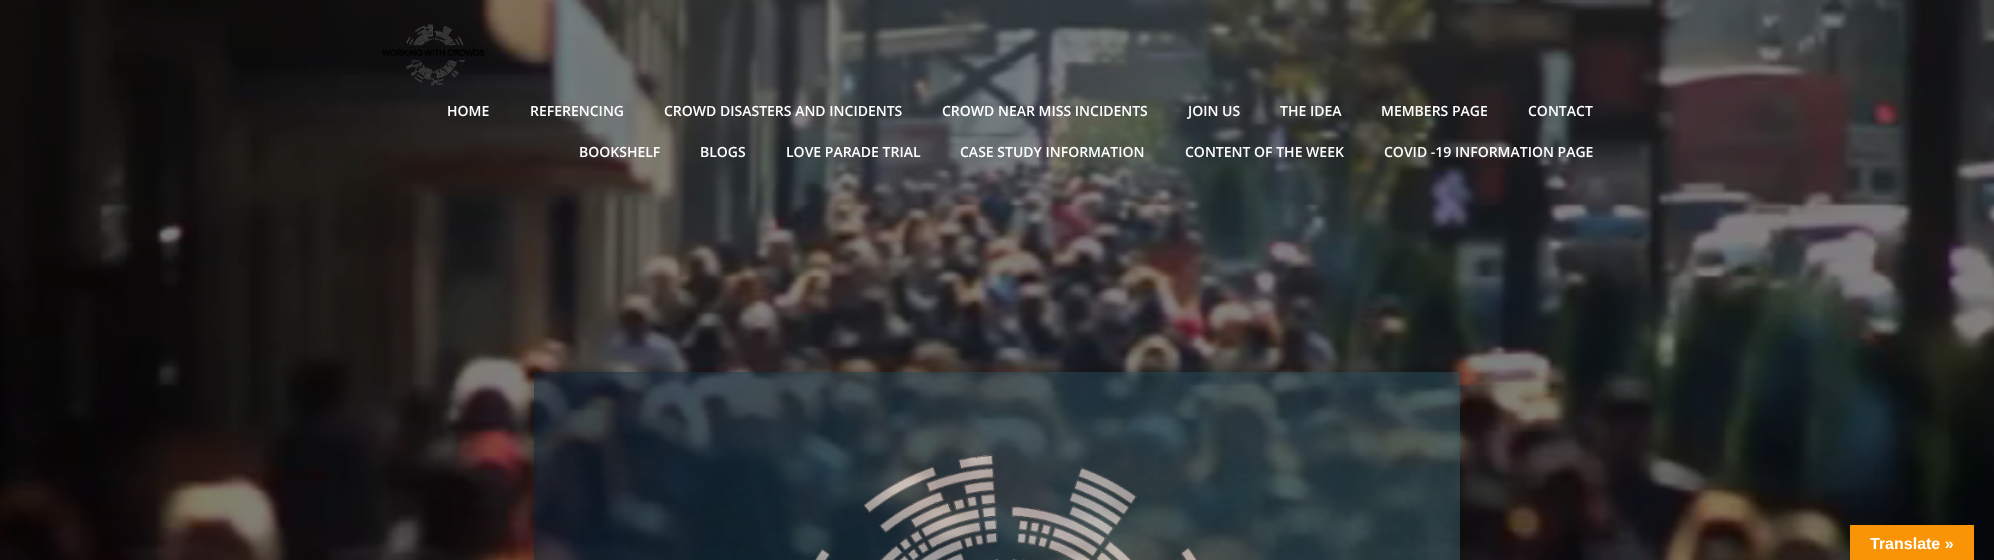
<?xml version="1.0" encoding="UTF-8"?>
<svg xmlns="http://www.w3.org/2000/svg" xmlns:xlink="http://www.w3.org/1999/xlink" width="1994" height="560">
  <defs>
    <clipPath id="clip1"><path d="M 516 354 h 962 v 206 h -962 z m 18 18 h 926 v 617 h -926 z" clip-rule="evenodd" /></clipPath>
  </defs>
  <rect width="100%" height="100%" fill="#ffffff" />
  <image x="0" y="0" width="1994" height="560" xlink:href="image1.png" />
  <g clip-path="url(#clip1)">
    <rect x="532" y="370" width="930" height="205" fill="#000000" fill-opacity="0.29" filter="blur(5px)" />
  </g>
  <image x="534" y="372" width="926" height="188" xlink:href="image2.png" />
  <image x="382" y="24" width="103" height="62" xlink:href="image3.png" />
  <rect x="1850" y="525" width="124" height="35" fill="#f89406" />
  <text x="447" y="116" style="font-family: Open Sans; font-size: 14px; font-weight: 600; fill: #ffffff">HOME</text>
  <text x="530" y="116" style="font-family: Open Sans; font-size: 14px; font-weight: 600; fill: #ffffff">REFERENCING</text>
  <text x="664" y="116" style="font-family: Open Sans; font-size: 14px; font-weight: 600; fill: #ffffff">CROWD DISASTERS AND INCIDENTS</text>
  <text x="942" y="116" style="font-family: Open Sans; font-size: 14px; font-weight: 600; fill: #ffffff">CROWD NEAR MISS INCIDENTS</text>
  <text x="1188" y="116" style="font-family: Open Sans; font-size: 14px; font-weight: 600; fill: #ffffff">JOIN US</text>
  <text x="1280" y="116" style="font-family: Open Sans; font-size: 14px; font-weight: 600; fill: #ffffff">THE IDEA</text>
  <text x="1381" y="116" style="font-family: Open Sans; font-size: 14px; font-weight: 600; fill: #ffffff">MEMBERS PAGE</text>
  <text x="1528" y="116" style="font-family: Open Sans; font-size: 14px; font-weight: 600; fill: #ffffff">CONTACT</text>
  <text x="579" y="157" style="font-family: Open Sans; font-size: 14px; font-weight: 600; fill: #ffffff">BOOKSHELF</text>
  <text x="700" y="157" style="font-family: Open Sans; font-size: 14px; font-weight: 600; fill: #ffffff">BLOGS</text>
  <text x="786" y="157" style="font-family: Open Sans; font-size: 14px; font-weight: 600; fill: #ffffff">LOVE PARADE TRIAL</text>
  <text x="960" y="157" style="font-family: Open Sans; font-size: 14px; font-weight: 600; fill: #ffffff">CASE STUDY INFORMATION</text>
  <text x="1185" y="157" style="font-family: Open Sans; font-size: 14px; font-weight: 600; fill: #ffffff">CONTENT OF THE WEEK</text>
  <text x="1384" y="157" style="font-family: Open Sans; font-size: 14px; font-weight: 600; fill: #ffffff">COVID -19 INFORMATION PAGE</text>
  <text x="1870" y="549" style="font-family: Liberation Sans; font-size: 16px; font-weight: bold; fill: #ffffff">Translate »</text>
</svg>
